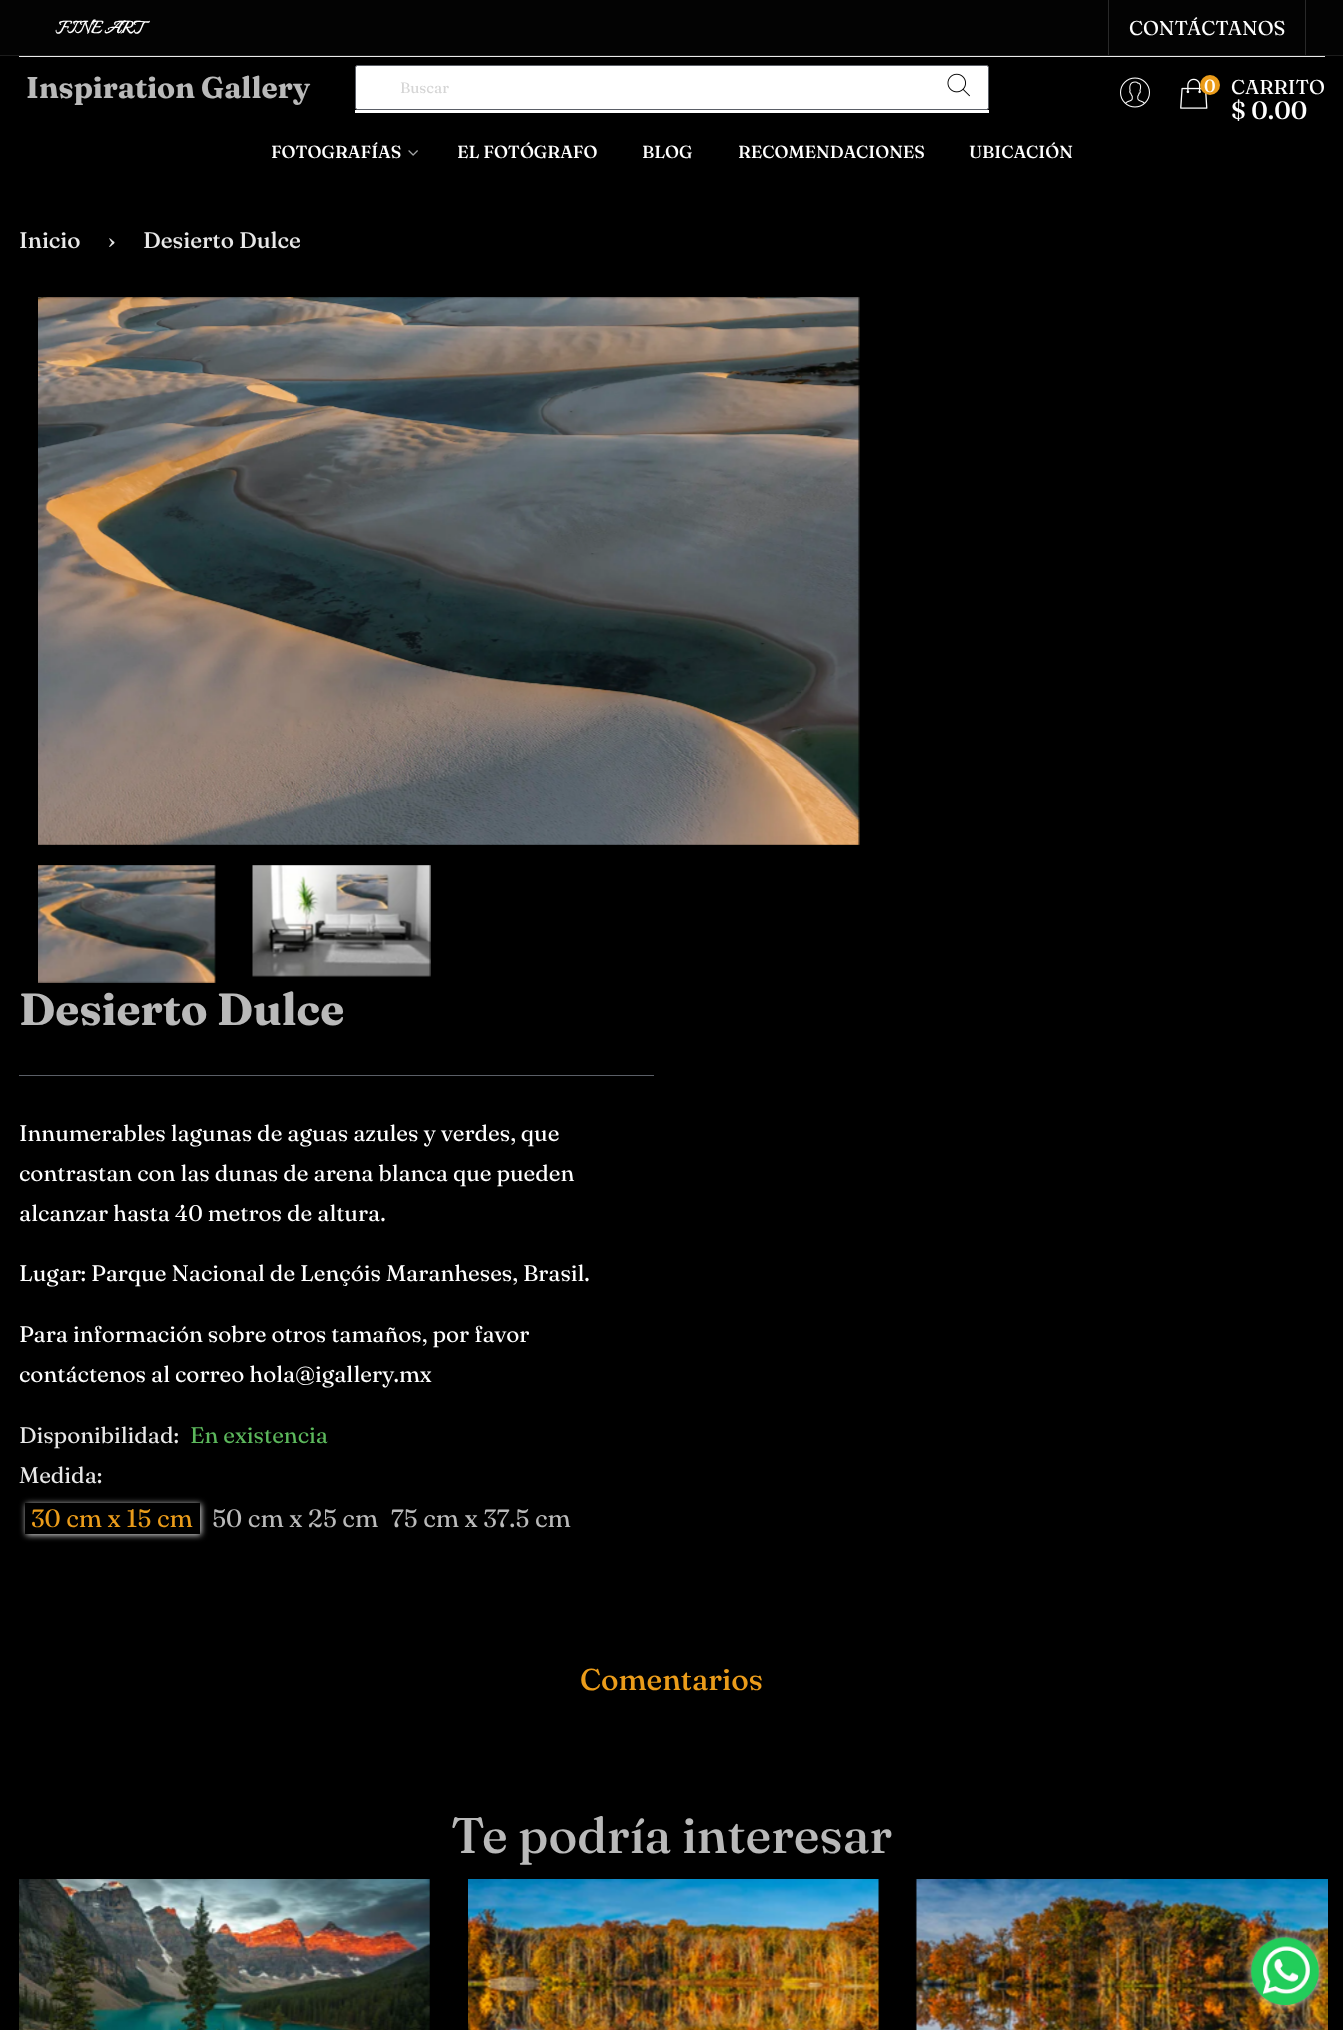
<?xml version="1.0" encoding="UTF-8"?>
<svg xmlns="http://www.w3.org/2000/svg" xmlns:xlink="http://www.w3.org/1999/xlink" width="1343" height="2030">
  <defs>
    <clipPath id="clip1"><path d="M 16 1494 h 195 v 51 h -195 z m 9 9 h 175 v 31 h -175 z" clip-rule="evenodd" /></clipPath>
  </defs>
  <rect width="100%" height="100%" fill="#000000" />
  <rect width="1343" height="55" fill="#030303" />
  <rect y="55" width="1343" height="1" fill="#1c1c1c" />
  <rect x="1305" width="1" height="55" fill="#292929" />
  <rect x="1108" width="1" height="55" fill="#292929" />
  <rect x="19" y="56" width="1306" height="1" fill="#ebebeb" />
  <rect x="355.5" y="65.5" width="633" height="44" rx="2" fill="#ffffff" stroke="#5b5f67" />
  <image x="947" y="73" width="23" height="24" xlink:href="image1.png" />
  <rect x="355" y="110" width="634" height="3" fill="#ffffff" />
  <image x="1120" y="77" width="30" height="31" xlink:href="image2.png" />
  <image x="1180" y="78" width="28" height="31" xlink:href="image3.png" />
  <circle cx="1210" cy="85" r="10" fill="#eb9c1a" />
  <image x="408" y="150" width="10" height="6" xlink:href="image4.png" />
  <image x="38" y="297" width="822" height="548" xlink:href="image5.png" />
  <image x="38" y="865" width="178" height="118" xlink:href="image6.png" />
  <image x="252" y="865" width="179" height="112" xlink:href="image7.png" />
  <rect x="19" y="1075" width="635" height="1" fill="#5b5f67" />
  <g clip-path="url(#clip1)">
    <rect x="26" y="1504" width="175" height="31" fill="#e4e4e4" filter="blur(3px)" />
  </g>
  <image x="19" y="1879" width="411" height="151" xlink:href="image8.png" />
  <image x="468" y="1879" width="412" height="151" xlink:href="image9.png" />
  <image x="915" y="1879" width="413" height="151" xlink:href="image10.png" />
  <rect x="1251" y="1938" width="68" height="67" rx="33.5" fill="#c2c2c2" filter="blur(5px)" />
  <image x="1251" y="1937" width="68" height="68" xlink:href="image11.png" />
  <text x="55" y="33" style="font-family: Italianno; font-size: 21.25px; font-weight: bold; fill: #ffffff">FINE ART</text>
  <text x="1129" y="35" style="font-family: Fraunces; font-size: 20px; fill: #ffffff">CONTÁCTANOS</text>
  <text x="26" y="98" style="font-family: Fraunces; font-size: 30px; font-weight: bold; fill: #b9b9b9">Inspiration Gallery</text>
  <text x="400" y="93" style="font-family: Fraunces; font-size: 15px; fill: #d5d5d5">Buscar</text>
  <text x="1204" y="92" style="font-family: 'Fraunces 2'; font-size: 17.5px; font-weight: 500; fill: #ffffff">0</text>
  <text x="1231" y="94" style="font-family: Fraunces; font-size: 20px; fill: #ffffff">CARRITO</text>
  <text x="1231" y="119" style="font-family: Fraunces; font-size: 25px; font-weight: 500; fill: #ffffff">$ 0.00</text>
  <text x="271" y="158" style="font-family: 'Fraunces 2'; font-size: 17.5px; font-weight: 500; fill: #ffffff">FOTOGRAFÍAS</text>
  <text x="457" y="158" style="font-family: 'Fraunces 2'; font-size: 17.5px; font-weight: 500; fill: #ffffff">EL FOTÓGRAFO</text>
  <text x="642" y="158" style="font-family: 'Fraunces 2'; font-size: 17.5px; font-weight: 500; fill: #ffffff">BLOG</text>
  <text x="738" y="158" style="font-family: 'Fraunces 2'; font-size: 17.5px; font-weight: 500; fill: #ffffff">RECOMENDACIONES</text>
  <text x="969" y="158" style="font-family: 'Fraunces 2'; font-size: 17.5px; font-weight: 500; fill: #ffffff">UBICACIÓN</text>
  <text x="19" y="248" style="font-family: 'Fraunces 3'; font-size: 22.5px; font-weight: 500; fill: #e8e8e8">Inicio</text>
  <text x="108" y="248" style="font-family: 'Fraunces 3'; font-size: 22.5px; font-weight: 500; fill: #e8e8e8">›</text>
  <text x="143" y="248" style="font-family: 'Fraunces 3'; font-size: 22.5px; font-weight: 500; fill: #e8e8e8">Desierto Dulce</text>
  <text x="19" y="1025" style="font-family: 'Fraunces 2'; font-size: 45px; font-weight: bold; fill: #b9b9b9">Desierto Dulce</text>
  <text x="19" y="1141" style="font-family: 'Fraunces 2'; font-size: 22.5px; fill: #ffffff">Innumerables lagunas de aguas azules y verdes, que</text>
  <text x="19" y="1181" style="font-family: 'Fraunces 2'; font-size: 22.5px; fill: #ffffff">contrastan con las dunas de arena blanca que pueden</text>
  <text x="19" y="1221" style="font-family: 'Fraunces 2'; font-size: 22.5px; fill: #ffffff">alcanzar hasta 40 metros de altura.</text>
  <text x="19" y="1281" style="font-family: 'Fraunces 2'; font-size: 22.5px; fill: #ffffff">Lugar: Parque Nacional de Lençóis Maranheses, Brasil.</text>
  <text x="19" y="1342" style="font-family: 'Fraunces 2'; font-size: 22.5px; fill: #ffffff">Para información sobre otros tamaños, por favor</text>
  <text x="19" y="1382" style="font-family: 'Fraunces 2'; font-size: 22.5px; fill: #ffffff">contáctenos al correo hola@igallery.mx</text>
  <text x="19" y="1443" style="font-family: 'Fraunces 2'; font-size: 22.5px; fill: #e8e8e8">Disponibilidad:</text>
  <text x="190" y="1443" style="font-family: 'Fraunces 2'; font-size: 22.5px; fill: #5cb85c">En existencia</text>
  <text x="19" y="1483" style="font-family: 'Fraunces 2'; font-size: 22.5px; fill: #e8e8e8">Medida:</text>
  <text x="31" y="1527" style="font-family: 'Fraunces 3'; font-size: 25px; fill: #eb9c1a">30 cm x 15 cm</text>
  <text x="212" y="1527" style="font-family: 'Fraunces 3'; font-size: 25px; fill: #b9b9b9">50 cm x 25 cm</text>
  <text x="391" y="1527" style="font-family: 'Fraunces 3'; font-size: 25px; fill: #b9b9b9">75 cm x 37.5 cm</text>
  <text x="580" y="1690" style="font-family: 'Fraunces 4'; font-size: 30px; font-weight: 500; fill: #eb9c1a">Comentarios</text>
  <text x="451" y="1853" style="font-family: 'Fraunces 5'; font-size: 50px; font-weight: 500; fill: #b9b9b9">Te podría interesar</text>
</svg>
